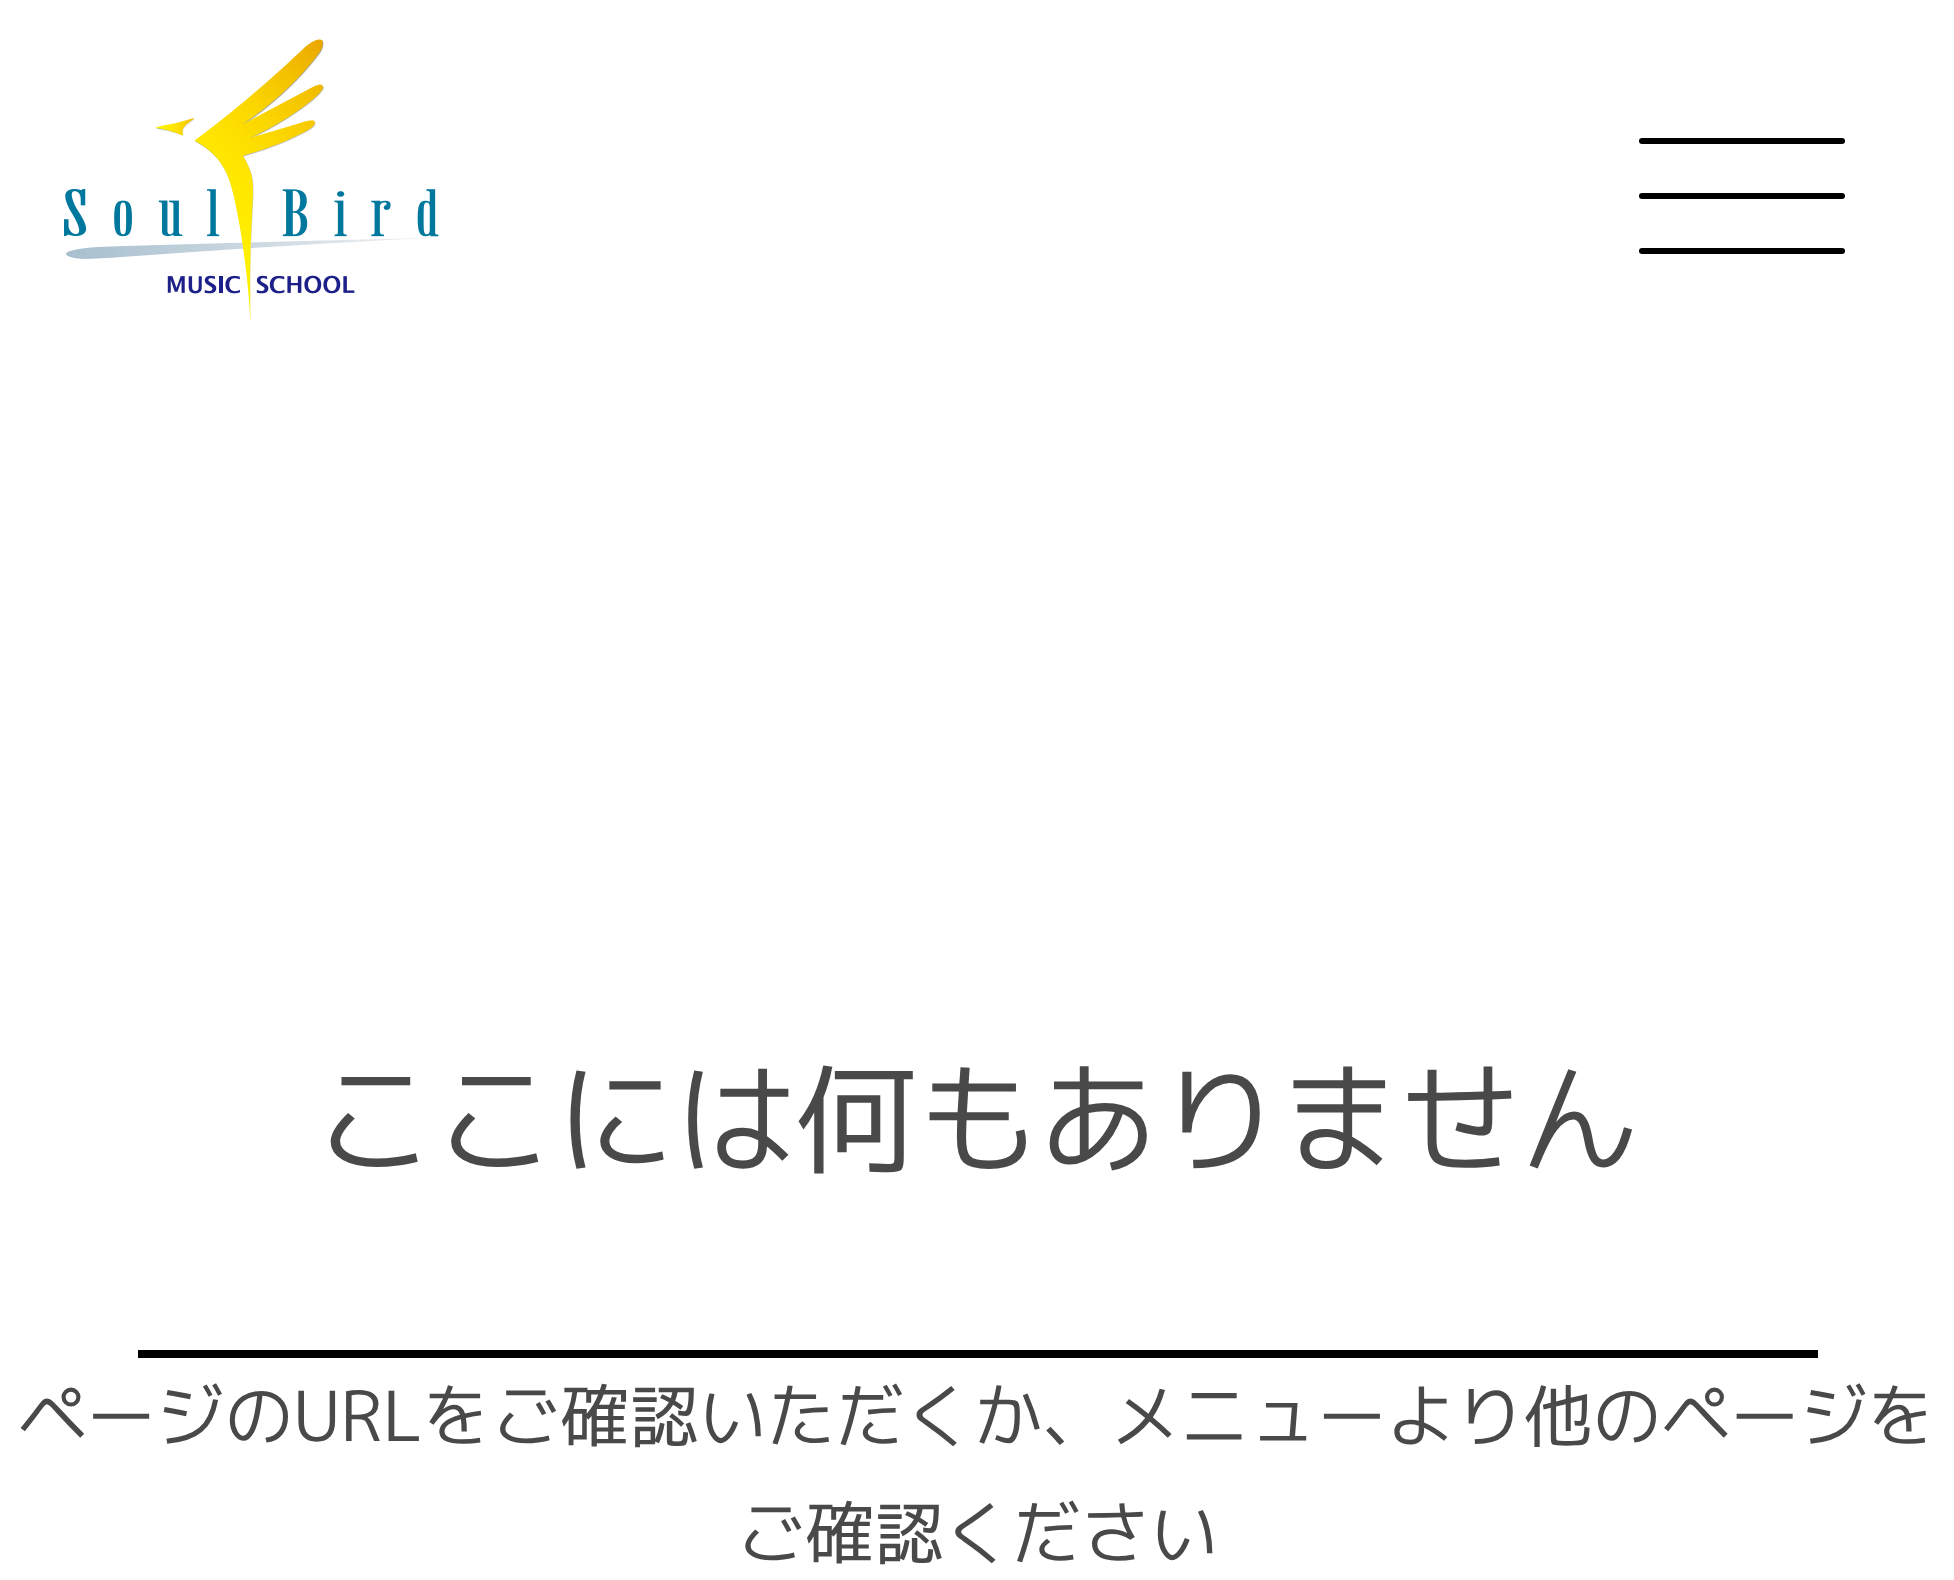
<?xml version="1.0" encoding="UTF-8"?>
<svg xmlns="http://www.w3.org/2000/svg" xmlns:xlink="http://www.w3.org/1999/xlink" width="1954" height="1580">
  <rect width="100%" height="100%" fill="#ffffff" />
  <rect x="1639" y="138" width="206" height="6" rx="3" fill="#000000" />
  <rect x="1639" y="193" width="206" height="6" rx="3" fill="#000000" />
  <rect x="1639" y="248" width="206" height="6" rx="3" fill="#000000" />
  <image x="64" y="39" width="375" height="283" xlink:href="image1.png" />
  <rect x="138" y="1350" width="1680" height="8" fill="#000000" />
  <text x="315" y="1163" style="font-family: 'M PLUS 1p'; font-size: 120.5px; fill: #494949">ここには何もありません</text>
  <text x="18" y="1441" style="font-family: 'M PLUS 1p'; font-size: 68.8px; fill: #494949">ページのURLをご確認いただくか、メニューより他のページを</text>
  <text x="737" y="1558" style="font-family: 'M PLUS 1p'; font-size: 68.8px; fill: #494949">ご確認ください</text>
</svg>
